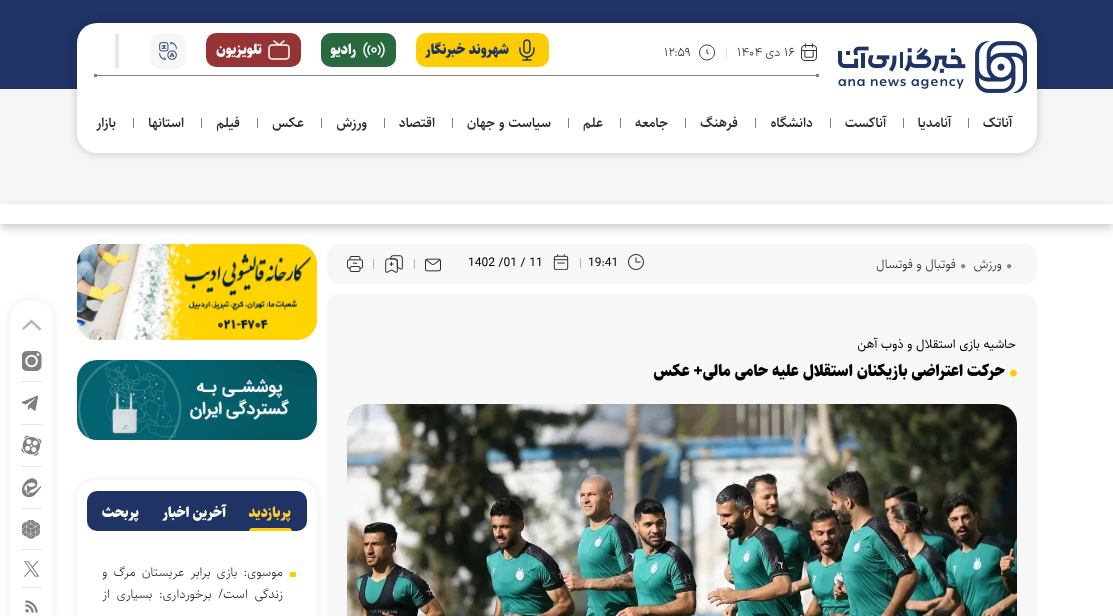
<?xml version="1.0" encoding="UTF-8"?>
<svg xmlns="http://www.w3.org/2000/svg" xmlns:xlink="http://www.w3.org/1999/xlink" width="1113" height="616">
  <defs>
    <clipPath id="clip1"><path d="M 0 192 h 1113 v 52 h -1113 z m 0 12 h 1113 v 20 h -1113 z" clip-rule="evenodd" /></clipPath>
  </defs>
  <rect width="100%" height="100%" fill="#ffffff" />
  <rect width="1113" height="89" fill="#1f3465" />
  <g clip-path="url(#clip1)">
    <rect y="208" width="1113" height="20" fill="#000000" fill-opacity="0.2" filter="blur(5px)" />
  </g>
  <rect y="89" width="1113" height="115" fill="#c5c5c5" fill-opacity="0.15" />
  <rect x="77" y="23" width="960" height="130" rx="20" fill="#000000" fill-opacity="0.2" filter="blur(5px)" />
  <rect x="77" y="23" width="960" height="130" rx="20" fill="#ffffff" />
  <image x="838" y="41" width="189" height="52" xlink:href="image1.png" />
  <rect x="94" y="75" width="725" height="1" fill="#808080" />
  <image x="801" y="43" width="16" height="18" xlink:href="image2.png" />
  <rect x="726" y="48" width="1" height="11" fill="#dfdfdf" />
  <image x="699" y="44" width="17" height="17" xlink:href="image3.png" />
  <rect x="416" y="33" width="133" height="34" rx="10" fill="#fdcc01" />
  <image x="519" y="39" width="16" height="22" xlink:href="image4.png" />
  <rect x="321" y="33" width="75" height="34" rx="10" fill="#28693f" />
  <image x="363" y="42" width="22" height="16" xlink:href="image5.png" />
  <rect x="206" y="33" width="95" height="34" rx="10" fill="#963435" />
  <image x="268" y="40" width="22" height="20" xlink:href="image6.png" />
  <image x="150" y="33" width="36" height="36" xlink:href="image7.png" />
  <rect x="115" y="33" width="4" height="36" rx="2" fill="#e7e8ef" />
  <rect x="816" y="74" width="3" height="3" fill="#808080" />
  <rect x="94" y="74" width="3" height="3" fill="#808080" />
  <rect x="968" y="118" width="1" height="10" fill="#808080" />
  <rect x="903" y="118" width="1" height="10" fill="#808080" />
  <rect x="830" y="118" width="1" height="10" fill="#808080" />
  <rect x="755" y="118" width="1" height="10" fill="#808080" />
  <rect x="685" y="118" width="1" height="10" fill="#808080" />
  <rect x="620" y="118" width="1" height="10" fill="#808080" />
  <rect x="568" y="118" width="1" height="10" fill="#808080" />
  <rect x="452" y="118" width="1" height="10" fill="#808080" />
  <rect x="384" y="118" width="1" height="10" fill="#808080" />
  <rect x="321" y="118" width="1" height="10" fill="#808080" />
  <rect x="257" y="118" width="1" height="10" fill="#808080" />
  <rect x="201" y="118" width="1" height="10" fill="#808080" />
  <rect x="133" y="118" width="1" height="10" fill="#808080" />
  <rect x="327" y="244" width="710" height="40" rx="12" fill="#f7f7f7" />
  <image x="1007" y="264" width="5" height="5" xlink:href="image8.png" />
  <image x="961" y="264" width="5" height="5" xlink:href="image8.png" />
  <image x="628" y="254" width="16" height="16" xlink:href="image9.png" />
  <rect x="580" y="258" width="1" height="10" fill="#b3b3b3" />
  <image x="553" y="254" width="16" height="16" xlink:href="image10.png" />
  <image x="425" y="258" width="16" height="14" xlink:href="image11.png" />
  <rect x="414" y="259" width="1" height="10" fill="#b3b3b3" />
  <image x="385" y="255" width="18" height="18" xlink:href="image12.png" />
  <rect x="373" y="259" width="1" height="10" fill="#b3b3b3" />
  <image x="347" y="256" width="16" height="16" xlink:href="image13.png" />
  <rect x="327" y="294" width="710" height="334" rx="12" fill="#f7f7f7" />
  <image x="1010" y="369" width="7" height="8" xlink:href="image14.png" />
  <image x="347" y="404" width="670" height="212" xlink:href="image15.png" />
  <image x="77" y="244" width="240" height="96" xlink:href="image16.png" />
  <image x="77" y="360" width="240" height="80" xlink:href="image17.png" />
  <rect x="77" y="480" width="240" height="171" rx="20" fill="#000000" fill-opacity="0.08" filter="blur(5px)" />
  <rect x="77" y="480" width="240" height="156" rx="20" fill="#ffffff" />
  <rect x="87" y="491" width="220" height="40" rx="10" fill="#1f3465" />
  <path d="M 252 528 h 37 c 1.5 0 3 1.5 3 3 h -43 c 0 -1.5 1.5 -3 3 -3 z" fill="#fdcc01" />
  <rect x="290" y="572" width="6" height="5" fill="#fdcc01" />
  <rect x="10" y="300" width="43" height="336" rx="20" fill="#000000" fill-opacity="0.08" filter="blur(5px)" />
  <rect x="10" y="300" width="43" height="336" rx="20" fill="#ffffff" />
  <path d="M 31.5 323 l -8 7 l -1.5 -1.5 l 9.5 -9 l 10 9.5 l -2 1.5 z" fill="#b5b5b5" />
  <rect x="21" y="381" width="21" height="1" fill="#e6e6e6" />
  <image x="22" y="351" width="20" height="20" xlink:href="image18.png" />
  <rect x="21" y="424" width="21" height="1" fill="#e6e6e6" />
  <image x="22" y="395" width="17" height="16" xlink:href="image19.png" />
  <rect x="21" y="466" width="21" height="1" fill="#e6e6e6" />
  <image x="21" y="435" width="21" height="21" xlink:href="image20.png" />
  <rect x="21" y="508" width="21" height="1" fill="#e6e6e6" />
  <image x="22" y="478" width="19" height="20" xlink:href="image21.png" />
  <rect x="21" y="549" width="21" height="1" fill="#e6e6e6" />
  <image x="22" y="520" width="18" height="19" xlink:href="image22.png" />
  <rect x="21" y="587" width="21" height="1" fill="#e6e6e6" />
  <image x="24" y="561" width="15" height="16" xlink:href="image23.png" />
  <image x="25" y="600" width="13" height="13" xlink:href="image24.png" />
  <text x="784" y="56" style="font-family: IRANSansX; font-size: 12px; font-weight: 300; fill: #303030">۱۶</text>
  <text x="780" y="56" style="font-family: IRANSansX; font-size: 12px; font-weight: 300; direction: rtl; fill: #303030">دی</text>
  <text x="737" y="56" style="font-family: IRANSansX; font-size: 12px; font-weight: 300; fill: #303030">۱۴۰۴</text>
  <text x="664" y="56" style="font-family: IRANSansX; font-size: 12px; font-weight: 300; fill: #303030">۱۲:۵۹</text>
  <text x="509" y="54" style="font-family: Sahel; font-size: 14px; font-weight: 900; direction: rtl; fill: #1f3465">شهروند خبرنگار</text>
  <text x="356" y="54" style="font-family: Sahel; font-size: 14px; font-weight: 900; direction: rtl; fill: #ffffff">رادیو</text>
  <text x="262" y="54" style="font-family: Sahel; font-size: 14px; font-weight: 900; direction: rtl; fill: #ffffff">تلویزیون</text>
  <text x="1012" y="127" style="font-family: Sahel; font-size: 14px; font-weight: 600; direction: rtl; fill: #303030">آناتک</text>
  <text x="951" y="127" style="font-family: Sahel; font-size: 14px; font-weight: 600; direction: rtl; fill: #303030">آنامدیا</text>
  <text x="886" y="127" style="font-family: Sahel; font-size: 14px; font-weight: 600; direction: rtl; fill: #303030">آناکست</text>
  <text x="813" y="127" style="font-family: Sahel; font-size: 14px; font-weight: 600; direction: rtl; fill: #303030">دانشگاه</text>
  <text x="738" y="127" style="font-family: Sahel; font-size: 14px; font-weight: 600; direction: rtl; fill: #303030">فرهنگ‌</text>
  <text x="668" y="127" style="font-family: Sahel; font-size: 14px; font-weight: 600; direction: rtl; fill: #303030">جامعه</text>
  <text x="603" y="127" style="font-family: Sahel; font-size: 14px; font-weight: 600; direction: rtl; fill: #303030">علم</text>
  <text x="551" y="127" style="font-family: Sahel; font-size: 14px; font-weight: 600; direction: rtl; fill: #303030">سیاست و جهان</text>
  <text x="435" y="127" style="font-family: Sahel; font-size: 14px; font-weight: 600; direction: rtl; fill: #303030">اقتصاد</text>
  <text x="367" y="127" style="font-family: Sahel; font-size: 14px; font-weight: 600; direction: rtl; fill: #303030">ورزش</text>
  <text x="304" y="127" style="font-family: Sahel; font-size: 14px; font-weight: 600; direction: rtl; fill: #303030">عکس</text>
  <text x="240" y="127" style="font-family: Sahel; font-size: 14px; font-weight: 600; direction: rtl; fill: #303030">فیلم</text>
  <text x="184" y="127" style="font-family: Sahel; font-size: 14px; font-weight: 600; direction: rtl; fill: #303030">استانها</text>
  <text x="116" y="127" style="font-family: Sahel; font-size: 14px; font-weight: 600; direction: rtl; fill: #303030">بازار</text>
  <text x="1002" y="268" style="font-family: Sahel; font-size: 13px; font-weight: 300; direction: rtl; fill: #303030">ورزش</text>
  <text x="956" y="268" style="font-family: Sahel; font-size: 13px; font-weight: 300; direction: rtl; fill: #303030">فوتبال و فوتسال</text>
  <text x="588" y="266" style="font-family: IRANSansX; font-size: 12px; fill: #000000">19:41</text>
  <text x="468" y="266" style="font-family: IRANSansX; font-size: 12px; fill: #000000">1402 /01 / 11</text>
  <text x="1016" y="348" style="font-family: Sahel; font-size: 13px; direction: rtl; fill: #000000">حاشیه بازی استقلال و ذوب آهن</text>
  <text x="1005" y="376" style="font-family: Sahel; font-size: 16px; font-weight: 900; direction: rtl; fill: #000000">حرکت اعتراضی بازیکنان استقلال علیه حامی مالی+ عکس</text>
  <text x="291" y="517" style="font-family: Sahel; font-size: 14px; font-weight: 900; direction: rtl; fill: #ffcd32">پربازدید</text>
  <text x="226" y="517" style="font-family: Sahel; font-size: 14px; font-weight: 900; direction: rtl; fill: #ffffff">آخرین اخبار</text>
  <text x="139" y="517" style="font-family: Sahel; font-size: 14px; font-weight: 900; direction: rtl; fill: #ffffff">پربحث</text>
  <text x="283" y="576" word-spacing="2.5" style="font-family: Sahel; font-size: 13px; font-weight: 300; direction: rtl; fill: #303030">موسوی: بازی برابر عربستان مرگ و</text>
  <text x="283" y="598" word-spacing="3" style="font-family: Sahel; font-size: 13px; font-weight: 300; direction: rtl; fill: #303030">زندگی است/ برخورداری: بسیاری از</text>
</svg>
